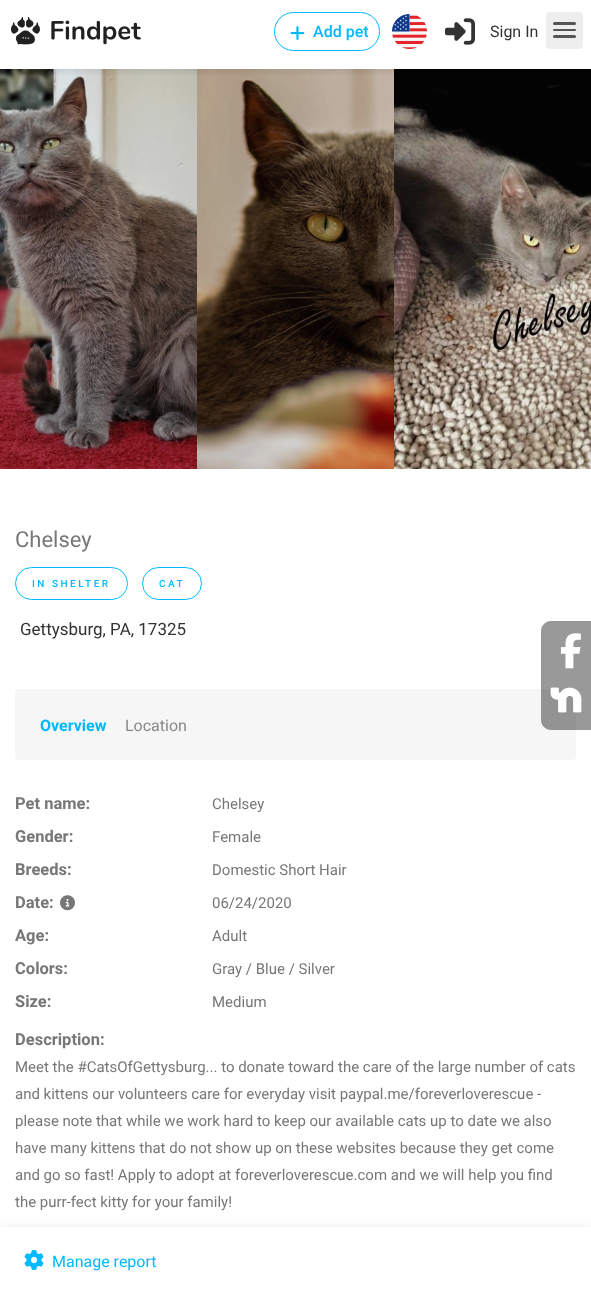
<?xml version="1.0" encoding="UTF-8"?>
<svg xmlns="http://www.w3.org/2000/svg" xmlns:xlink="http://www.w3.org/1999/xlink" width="591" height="1292">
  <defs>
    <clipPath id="clip1"><rect x="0" y="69" width="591" height="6" /></clipPath>
  </defs>
  <rect width="100%" height="100%" fill="#ffffff" />
  <image x="0" y="69" width="197" height="400" xlink:href="image5.png" />
  <image x="197" y="69" width="197" height="400" xlink:href="image6.png" />
  <image x="394" y="69" width="197" height="400" xlink:href="image7.png" />
  <g clip-path="url(#clip1)">
    <rect width="591" height="69" fill="#000000" fill-opacity="0.12" filter="blur(6px)" />
  </g>
  <image x="11" y="16" width="130" height="29" xlink:href="image1.png" />
  <rect x="274.5" y="12.5" width="105" height="38" rx="19" fill="none" stroke="#01b9ff" />
  <image x="290" y="26" width="15" height="14" xlink:href="image2.png" />
  <image x="392" y="14" width="35" height="35" xlink:href="image3.png" />
  <image x="445" y="18" width="30" height="27" xlink:href="image4.png" />
  <rect x="546" y="12" width="37" height="37" rx="4" fill="#eeeeee" />
  <rect x="553" y="35" width="23" height="3" rx="1.5" fill="#555555" />
  <rect x="553" y="22" width="23" height="3" rx="1.5" fill="#555555" />
  <rect x="553" y="29" width="23" height="2" rx="1" fill="#555555" />
  <rect x="15.5" y="567.5" width="112" height="32" rx="16" fill="none" stroke="#01b9ff" />
  <rect x="142.5" y="567.5" width="59" height="32" rx="16" fill="none" stroke="#01b9ff" />
  <rect x="15" y="689" width="561" height="71" rx="4" fill="#f6f6f6" />
  <image x="60" y="895" width="15" height="16" xlink:href="image8.png" />
  <rect y="1227" width="591" height="65" fill="#000000" fill-opacity="0.08" filter="blur(6px)" />
  <rect y="1227" width="591" height="65" fill="#ffffff" />
  <image x="24" y="1250" width="20" height="20" xlink:href="image9.png" />
  <path d="M 551 621 h 40 v 109 h -40 c -5.5 0 -10 -4.5 -10 -10 v -89 c 0 -5.5 4.5 -10 10 -10 z" fill="#000000" fill-opacity="0.4" />
  <image x="560" y="633" width="21" height="36" xlink:href="image10.png" />
  <image x="550" y="687" width="32" height="26" xlink:href="image11.png" />
  <text x="313" y="37" style="font-family: Roboto; font-size: 16px; font-weight: 500; fill: #01b9ff">Add pet</text>
  <text x="490" y="37" style="font-family: Roboto; font-size: 16px; fill: #333333">Sign In</text>
  <text x="15" y="547" style="font-family: Roboto; font-size: 22px; fill: #777777">Chelsey</text>
  <text x="32" y="587" style="font-family: Roboto; font-size: 10px; font-weight: 500; letter-spacing: 2.5px; fill: #01b9ff">IN SHELTER</text>
  <text x="159" y="587" style="font-family: Roboto; font-size: 10px; font-weight: 500; letter-spacing: 2.5px; fill: #01b9ff">CAT</text>
  <text x="20" y="635" style="font-family: Roboto; font-size: 17px; fill: #333333">Gettysburg, PA, 17325</text>
  <text x="40" y="731" style="font-family: Roboto; font-size: 16px; font-weight: bold; fill: #01b9ff">Overview</text>
  <text x="125" y="731" style="font-family: Roboto; font-size: 16px; fill: #888888">Location</text>
  <text x="15" y="809" style="font-family: Roboto; font-size: 16.5px; font-weight: bold; fill: #777777">Pet name:</text>
  <text x="212" y="809" style="font-family: Roboto; font-size: 15px; fill: #777777">Chelsey</text>
  <text x="15" y="842" style="font-family: Roboto; font-size: 16.5px; font-weight: bold; fill: #777777">Gender:</text>
  <text x="212" y="842" style="font-family: Roboto; font-size: 15px; fill: #777777">Female</text>
  <text x="15" y="875" style="font-family: Roboto; font-size: 16.5px; font-weight: bold; fill: #777777">Breeds:</text>
  <text x="212" y="875" style="font-family: Roboto; font-size: 15px; fill: #777777">Domestic Short Hair</text>
  <text x="15" y="908" style="font-family: Roboto; font-size: 16.5px; font-weight: bold; fill: #777777">Date:</text>
  <text x="212" y="908" style="font-family: Roboto; font-size: 15px; fill: #777777">06/24/2020</text>
  <text x="15" y="941" style="font-family: Roboto; font-size: 16.5px; font-weight: bold; fill: #777777">Age:</text>
  <text x="212" y="941" style="font-family: Roboto; font-size: 15px; fill: #777777">Adult</text>
  <text x="15" y="974" style="font-family: Roboto; font-size: 16.5px; font-weight: bold; fill: #777777">Colors:</text>
  <text x="212" y="974" style="font-family: Roboto; font-size: 15px; fill: #777777">Gray / Blue / Silver</text>
  <text x="15" y="1007" style="font-family: Roboto; font-size: 16.5px; font-weight: bold; fill: #777777">Size:</text>
  <text x="212" y="1007" style="font-family: Roboto; font-size: 15px; fill: #777777">Medium</text>
  <text x="15" y="1045" style="font-family: Roboto; font-size: 16.5px; font-weight: bold; fill: #777777">Description:</text>
  <text x="15" y="1072" style="font-family: Roboto; font-size: 15px; fill: #777777">Meet the #CatsOfGettysburg... to donate toward the care of the large number of cats</text>
  <text x="15" y="1099" style="font-family: Roboto; font-size: 15px; fill: #777777">and kittens our volunteers care for everyday visit paypal.me/foreverloverescue -</text>
  <text x="15" y="1126" style="font-family: Roboto; font-size: 15px; fill: #777777">please note that while we work hard to keep our available cats up to date we also</text>
  <text x="15" y="1153" style="font-family: Roboto; font-size: 15px; fill: #777777">have many kittens that do not show up on these websites because they get come</text>
  <text x="15" y="1180" style="font-family: Roboto; font-size: 15px; fill: #777777">and go so fast! Apply to adopt at foreverloverescue.com and we will help you find</text>
  <text x="15" y="1207" style="font-family: Roboto; font-size: 15px; fill: #777777">the purr-fect kitty for your family!</text>
  <text x="52" y="1267" style="font-family: Roboto; font-size: 16px; fill: #01b9ff">Manage report</text>
</svg>
